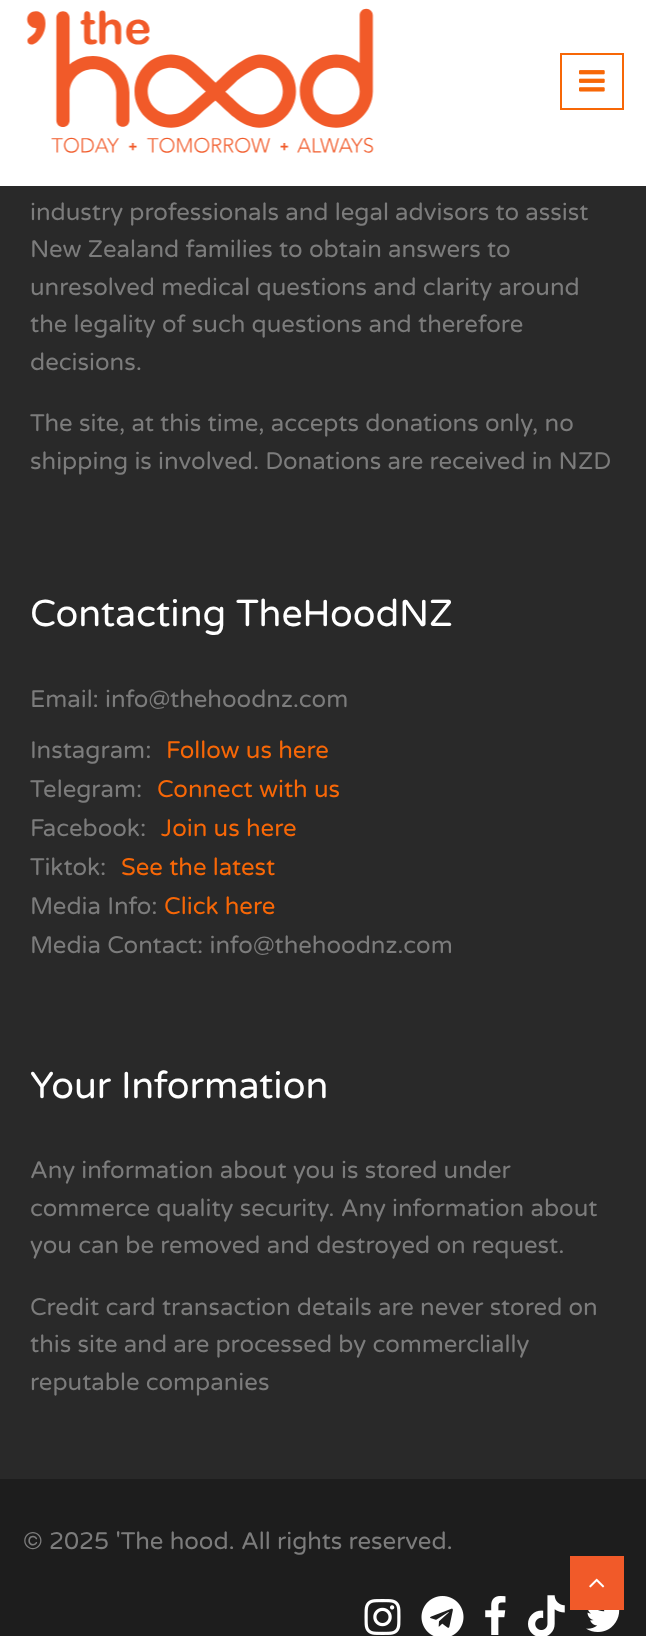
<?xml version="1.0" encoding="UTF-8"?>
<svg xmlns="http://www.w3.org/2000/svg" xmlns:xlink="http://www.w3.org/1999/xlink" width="646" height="1636">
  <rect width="100%" height="100%" fill="#292929" />
  <rect width="646" height="186" fill="#ffffff" />
  <image x="26" y="8" width="348" height="145" xlink:href="image1.png" />
  <rect x="561" y="54" width="62" height="55" fill="none" stroke="#f76707" stroke-width="2" />
  <image x="579" y="70" width="26" height="22" xlink:href="image2.png" />
  <rect y="1479" width="646" height="157" fill="#1d1d1d" />
  <image x="364" y="1599" width="37" height="36" xlink:href="image3.png" />
  <image x="421" y="1596" width="43" height="40" xlink:href="image4.png" />
  <image x="485" y="1596" width="21" height="39" xlink:href="image5.png" />
  <image x="528" y="1595" width="37" height="41" xlink:href="image6.png" />
  <image x="586" y="1610" width="34" height="22" xlink:href="image7.png" />
  <rect x="570" y="1556" width="54" height="54" fill="#f15a29" />
  <image x="589" y="1578" width="16" height="10" xlink:href="image8.png" />
  <text x="30" y="220" style="font-family: Varela Round; font-size: 24px; fill: #7c7c7c">industry professionals and legal advisors to assist</text>
  <text x="30" y="257" style="font-family: Varela Round; font-size: 24px; fill: #7c7c7c">New Zealand families to obtain answers to</text>
  <text x="30" y="295" style="font-family: Varela Round; font-size: 24px; fill: #7c7c7c">unresolved medical questions and clarity around</text>
  <text x="30" y="332" style="font-family: Varela Round; font-size: 24px; fill: #7c7c7c">the legality of such questions and therefore</text>
  <text x="30" y="370" style="font-family: Varela Round; font-size: 24px; fill: #7c7c7c">decisions.</text>
  <text x="30" y="431" style="font-family: Varela Round; font-size: 24px; fill: #7c7c7c">The site, at this time, accepts donations only, no</text>
  <text x="30" y="469" style="font-family: Varela Round; font-size: 24px; fill: #7c7c7c">shipping is involved. Donations are received in NZD</text>
  <text x="30" y="626" style="font-family: Varela Round; font-size: 37.5px; fill: #ffffff">Contacting TheHoodNZ</text>
  <text x="30" y="707" style="font-family: Varela Round; font-size: 24px; fill: #7c7c7c">Email: info@thehoodnz.com</text>
  <text x="30" y="758" style="font-family: Varela Round; font-size: 24px; fill: #7c7c7c">Instagram:</text>
  <text x="166" y="758" style="font-family: Varela Round; font-size: 24px; fill: #f76707">Follow us here</text>
  <text x="30" y="797" style="font-family: Varela Round; font-size: 24px; fill: #7c7c7c">Telegram:</text>
  <text x="157" y="797" style="font-family: Varela Round; font-size: 24px; fill: #f76707">Connect with us</text>
  <text x="30" y="836" style="font-family: Varela Round; font-size: 24px; fill: #7c7c7c">Facebook:</text>
  <text x="161" y="836" style="font-family: Varela Round; font-size: 24px; fill: #f76707">Join us here</text>
  <text x="30" y="875" style="font-family: Varela Round; font-size: 24px; fill: #7c7c7c">Tiktok:</text>
  <text x="121" y="875" style="font-family: Varela Round; font-size: 24px; fill: #f76707">See the latest</text>
  <text x="30" y="914" style="font-family: Varela Round; font-size: 24px; fill: #7c7c7c">Media Info:</text>
  <text x="164" y="914" style="font-family: Varela Round; font-size: 24px; fill: #f76707">Click here</text>
  <text x="30" y="953" style="font-family: Varela Round; font-size: 24px; fill: #7c7c7c">Media Contact: info@thehoodnz.com</text>
  <text x="30" y="1098" style="font-family: Varela Round; font-size: 37.5px; fill: #ffffff">Your Information</text>
  <text x="30" y="1178" style="font-family: Varela Round; font-size: 24px; fill: #7c7c7c">Any information about you is stored under</text>
  <text x="30" y="1216" style="font-family: Varela Round; font-size: 24px; fill: #7c7c7c">commerce quality security. Any information about</text>
  <text x="30" y="1253" style="font-family: Varela Round; font-size: 24px; fill: #7c7c7c">you can be removed and destroyed on request.</text>
  <text x="30" y="1315" style="font-family: Varela Round; font-size: 24px; fill: #7c7c7c">Credit card transaction details are never stored on</text>
  <text x="30" y="1352" style="font-family: Varela Round; font-size: 24px; fill: #7c7c7c">this site and are processed by commerclially</text>
  <text x="30" y="1390" style="font-family: Varela Round; font-size: 24px; fill: #7c7c7c">reputable companies</text>
  <text x="23" y="1549" style="font-family: Varela Round; font-size: 24px; fill: #7c7c7c">© 2025 'The hood. All rights reserved.</text>
</svg>
